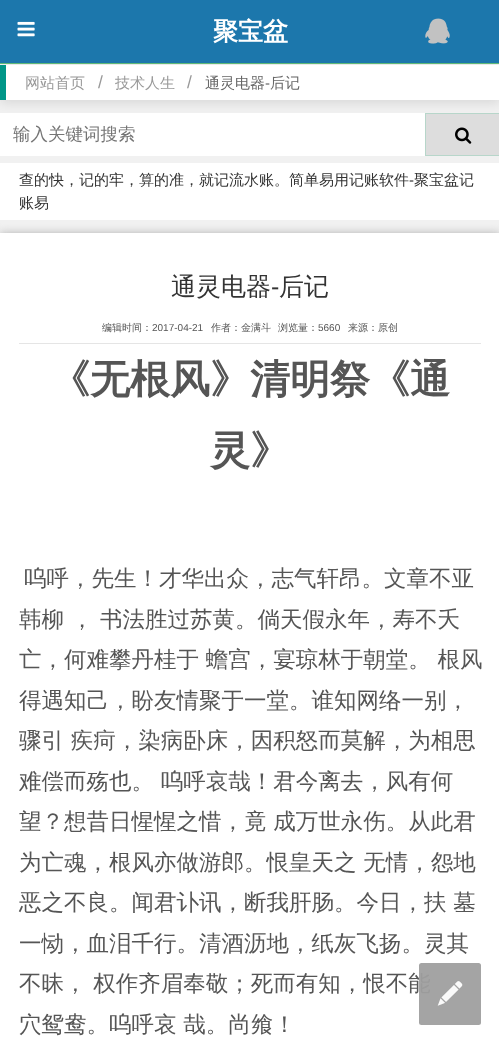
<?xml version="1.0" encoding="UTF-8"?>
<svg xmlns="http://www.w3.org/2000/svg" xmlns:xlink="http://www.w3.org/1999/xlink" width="499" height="1044">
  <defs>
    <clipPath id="clip1"><rect x="13" y="124" width="412" height="22" /></clipPath>
  </defs>
  <rect width="100%" height="100%" fill="#f1f1f1" />
  <rect y="68" width="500" height="35" fill="#000000" fill-opacity="0.1" filter="blur(6px)" />
  <rect width="499" height="63" fill="#1c77ac" />
  <rect y="63" width="499" height="1" fill="#5fb878" />
  <image x="17" y="21" width="18" height="16" xlink:href="image1.png" />
  <image x="425" y="18" width="25" height="26" xlink:href="image2.png" />
  <rect x="6" y="65" width="493" height="35" fill="#ffffff" />
  <rect y="65" width="6" height="35" fill="#009688" />
  <rect y="113" width="425" height="43" fill="#ffffff" />
  <rect x="425.5" y="113.5" width="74" height="42" fill="#dddddd" stroke="#b7d6ca" />
  <image x="455" y="127" width="17" height="17" xlink:href="image3.png" />
  <rect y="163" width="499" height="57" fill="#ffffff" />
  <rect y="234" width="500" height="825" fill="#a6a6a6" filter="blur(5px)" />
  <rect y="233" width="499" height="811" fill="#ffffff" />
  <rect x="19" y="343" width="462" height="1" fill="#e5e5e5" />
  <text x="213" y="40" style="font-family: WenQuanYi Zen Hei; font-size: 25px; font-weight: bold; fill: #ffffff">聚宝盆</text>
  <text x="25" y="88" style="font-family: WenQuanYi Zen Hei; font-size: 15px; font-weight: 500; fill: #999999">网站首页</text>
  <text x="98" y="88" style="font-family: Liberation Sans; font-size: 17.5px; fill: #999999">/</text>
  <text x="115" y="88" style="font-family: WenQuanYi Zen Hei; font-size: 15px; font-weight: 500; fill: #999999">技术人生</text>
  <text x="187" y="88" style="font-family: Liberation Sans; font-size: 17.5px; fill: #999999">/</text>
  <text x="205" y="88" style="font-family: WenQuanYi Zen Hei; font-size: 15px; font-weight: 500; fill: #666666">通灵电器</text>
  <text x="265" y="88" style="font-family: Liberation Sans; font-size: 15px; fill: #666666">-</text>
  <text x="270" y="88" style="font-family: WenQuanYi Zen Hei; font-size: 15px; font-weight: 500; fill: #666666">后记</text>
  <g clip-path="url(#clip1)">
    <text x="13" y="140" style="font-family: WenQuanYi Zen Hei; font-size: 17.5px; font-weight: 500; fill: #757575">输入关键词搜索</text>
  </g>
  <text x="19" y="185" style="font-family: WenQuanYi Zen Hei; font-size: 15px; font-weight: 500; fill: #333333">查的快，记的牢，算的准，就记流水账。简单易用记账软件</text>
  <text x="409" y="185" style="font-family: Liberation Sans; font-size: 15px; fill: #333333">-</text>
  <text x="414" y="185" style="font-family: WenQuanYi Zen Hei; font-size: 15px; font-weight: 500; fill: #333333">聚宝盆记</text>
  <text x="19" y="208" style="font-family: WenQuanYi Zen Hei; font-size: 15px; font-weight: 500; fill: #333333">账易</text>
  <text x="171" y="295" style="font-family: WenQuanYi Zen Hei; font-size: 25px; font-weight: 500; fill: #333333">通灵电器</text>
  <text x="271" y="295" style="font-family: Liberation Sans; font-size: 25px; fill: #333333">-</text>
  <text x="279" y="295" style="font-family: WenQuanYi Zen Hei; font-size: 25px; font-weight: 500; fill: #333333">后记</text>
  <text x="102" y="331" style="font-family: WenQuanYi Zen Hei; font-size: 10px; font-weight: 500; fill: #555555">编辑时间：</text>
  <text x="152" y="331" style="font-family: Liberation Sans; font-size: 10px; fill: #555555">2017-04-21</text>
  <text x="211" y="331" style="font-family: WenQuanYi Zen Hei; font-size: 10px; font-weight: 500; fill: #555555">作者：金满斗</text>
  <text x="278" y="331" style="font-family: WenQuanYi Zen Hei; font-size: 10px; font-weight: 500; fill: #555555">浏览量：</text>
  <text x="318" y="331" style="font-family: Liberation Sans; font-size: 10px; fill: #555555">5660</text>
  <text x="348" y="331" style="font-family: WenQuanYi Zen Hei; font-size: 10px; font-weight: 500; fill: #555555">来源：原创</text>
  <text x="50" y="393" style="font-family: WenQuanYi Zen Hei; font-size: 40px; font-weight: bold; fill: #555555">《无根风》清明祭《通</text>
  <text x="210" y="464" style="font-family: WenQuanYi Zen Hei; font-size: 40px; font-weight: bold; fill: #555555">灵》</text>
  <text x="24" y="586" style="font-family: WenQuanYi Zen Hei; font-size: 22.5px; font-weight: 500; fill: #555555">呜呼，先生！才华出众，志气轩昂。文章不亚</text>
  <text x="19" y="627" style="font-family: WenQuanYi Zen Hei; font-size: 22.5px; font-weight: 500; fill: #555555">韩柳 ， 书法胜过苏黄。倘天假永年，寿不夭</text>
  <text x="19" y="667" style="font-family: WenQuanYi Zen Hei; font-size: 22.5px; font-weight: 500; fill: #555555">亡，何难攀丹桂于 蟾宫，宴琼林于朝堂。 根风</text>
  <text x="19" y="708" style="font-family: WenQuanYi Zen Hei; font-size: 22.5px; font-weight: 500; fill: #555555">得遇知己，盼友情聚于一堂。谁知网络一别，</text>
  <text x="19" y="748" style="font-family: WenQuanYi Zen Hei; font-size: 22.5px; font-weight: 500; fill: #555555">骤引 疾疴，染病卧床，因积怒而莫解，为相思</text>
  <text x="19" y="789" style="font-family: WenQuanYi Zen Hei; font-size: 22.5px; font-weight: 500; fill: #555555">难偿而殇也。 呜呼哀哉！君今离去，风有何</text>
  <text x="19" y="829" style="font-family: WenQuanYi Zen Hei; font-size: 22.5px; font-weight: 500; fill: #555555">望？想昔日惺惺之惜，竟 成万世永伤。从此君</text>
  <text x="19" y="870" style="font-family: WenQuanYi Zen Hei; font-size: 22.5px; font-weight: 500; fill: #555555">为亡魂，根风亦做游郎。恨皇天之 无情，怨地</text>
  <text x="19" y="910" style="font-family: WenQuanYi Zen Hei; font-size: 22.5px; font-weight: 500; fill: #555555">恶之不良。闻君讣讯，断我肝肠。今日，扶 墓</text>
  <text x="19" y="951" style="font-family: WenQuanYi Zen Hei; font-size: 22.5px; font-weight: 500; fill: #555555">一恸，血泪千行。清酒沥地，纸灰飞扬。灵其</text>
  <text x="19" y="991" style="font-family: WenQuanYi Zen Hei; font-size: 22.5px; font-weight: 500; fill: #555555">不昧， 权作齐眉奉敬；死而有知，恨不能</text>
  <text x="19" y="1032" style="font-family: WenQuanYi Zen Hei; font-size: 22.5px; font-weight: 500; fill: #555555">穴鸳鸯。呜呼哀 哉。尚飨！</text>
  <rect x="419" y="963" width="62" height="62" rx="2.5" fill="#9f9f9f" fill-opacity="0.95" />
  <image x="437" y="981" width="26" height="25" xlink:href="image4.png" />
</svg>
